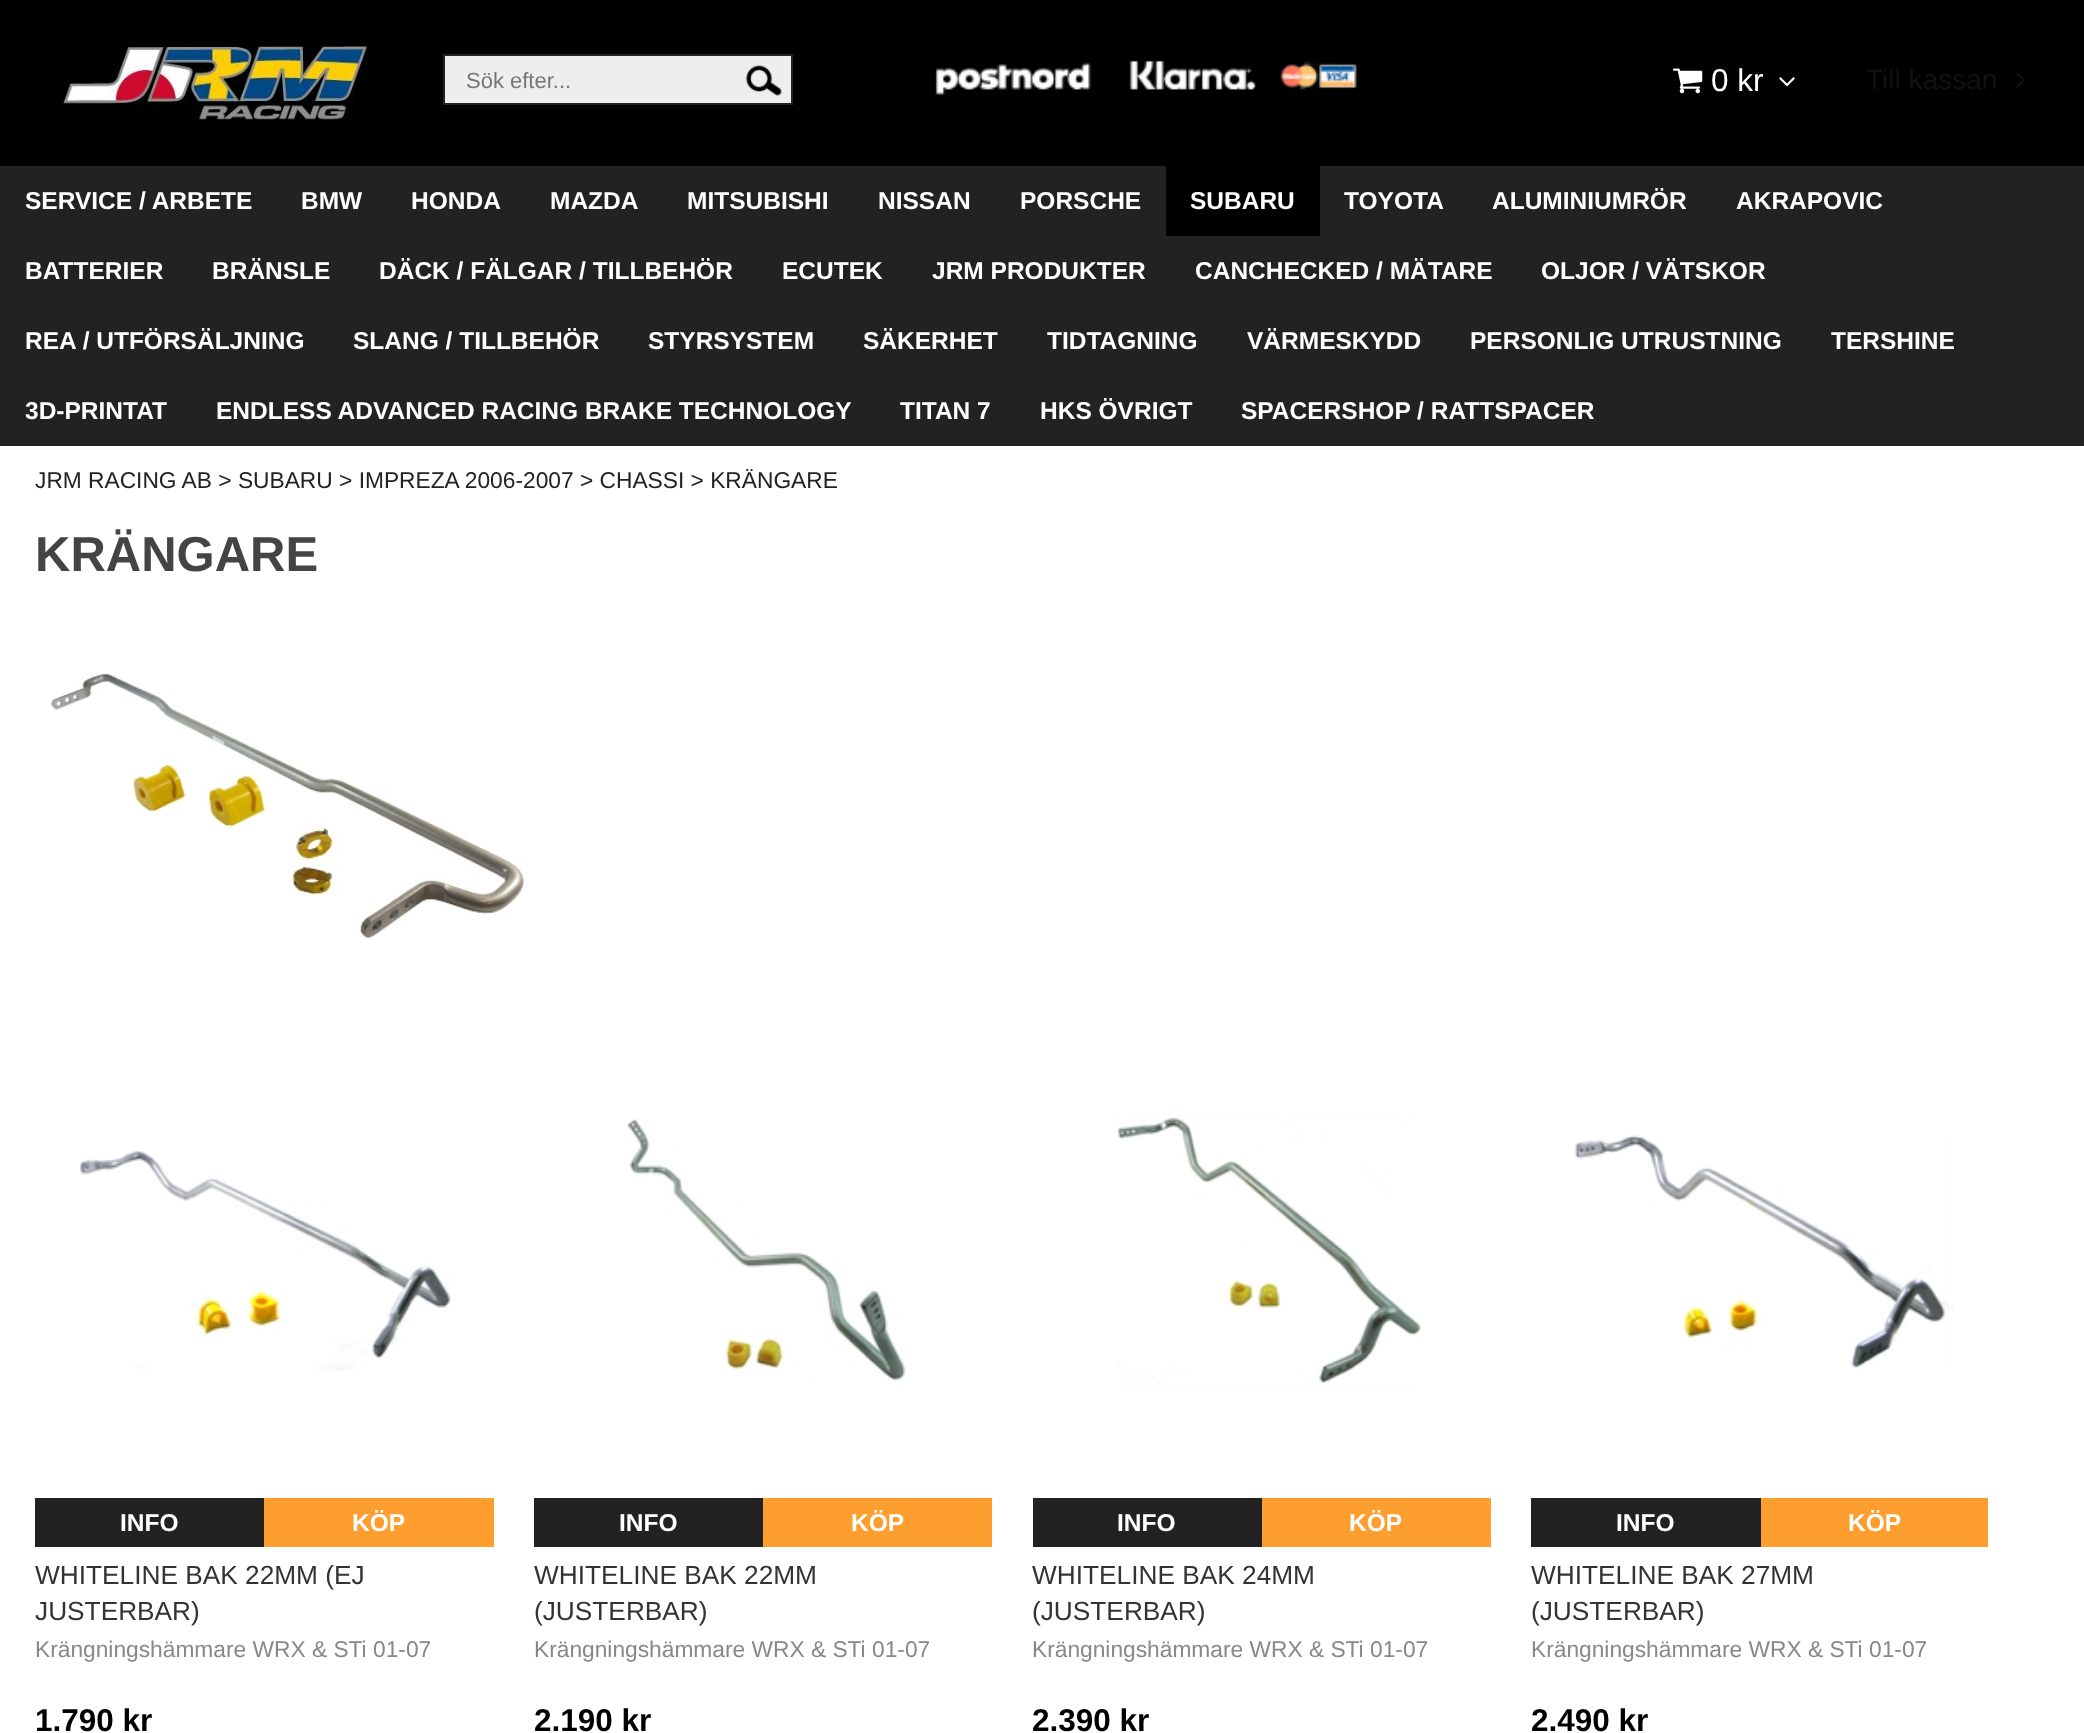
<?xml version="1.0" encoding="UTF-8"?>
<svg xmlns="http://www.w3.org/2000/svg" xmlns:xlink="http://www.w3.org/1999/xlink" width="2084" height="1733">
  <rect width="100%" height="100%" fill="#ffffff" />
  <rect width="2084" height="166" fill="#000000" />
  <image x="58" y="46" width="311" height="74" xlink:href="image1.png" />
  <rect x="444" y="55" width="348" height="49" fill="#eeeeee" stroke="#222222" stroke-width="2" />
  <image x="745" y="65" width="37" height="31" xlink:href="image2.png" />
  <image x="935" y="60" width="422" height="35" xlink:href="image3.png" />
  <image x="1673" y="68" width="30" height="26" xlink:href="image4.png" />
  <image x="1779" y="77" width="16" height="10" xlink:href="image5.png" />
  <image x="2016" y="72" width="9" height="16" xlink:href="image6.png" />
  <rect y="166" width="2084" height="280" fill="#222222" />
  <rect x="1166" y="166" width="154" height="70" fill="#000000" />
  <image x="50" y="673" width="475" height="266" xlink:href="image7.png" />
  <image x="80" y="1151" width="371" height="220" xlink:href="image8.png" />
  <rect x="35" y="1498" width="229" height="49" fill="#222222" />
  <rect x="264" y="1498" width="230" height="49" fill="#fd9e2f" />
  <image x="627" y="1119" width="279" height="263" xlink:href="image9.png" />
  <rect x="534" y="1498" width="229" height="49" fill="#222222" />
  <rect x="763" y="1498" width="229" height="49" fill="#fd9e2f" />
  <image x="1117" y="1113" width="305" height="275" xlink:href="image10.png" />
  <rect x="1033" y="1498" width="229" height="49" fill="#222222" />
  <rect x="1262" y="1498" width="229" height="49" fill="#fd9e2f" />
  <image x="1574" y="1135" width="379" height="234" xlink:href="image11.png" />
  <rect x="1531" y="1498" width="230" height="49" fill="#222222" />
  <rect x="1761" y="1498" width="227" height="49" fill="#fd9e2f" />
  <text x="466" y="88" style="font-family: Liberation Sans; font-size: 22px; fill: #757575">Sök efter...</text>
  <text x="1711" y="91" style="font-family: Liberation Sans; font-size: 31.5px; fill: #ffffff">0 kr</text>
  <text x="1866" y="89" style="font-family: Liberation Sans; font-size: 28px; fill: #111111">Till kassan</text>
  <text x="25" y="209" style="font-family: Liberation Sans; font-size: 24.5px; font-weight: bold; fill: #ffffff">SERVICE / ARBETE</text>
  <text x="301" y="209" style="font-family: Liberation Sans; font-size: 24.5px; font-weight: bold; fill: #ffffff">BMW</text>
  <text x="411" y="209" style="font-family: Liberation Sans; font-size: 24.5px; font-weight: bold; fill: #ffffff">HONDA</text>
  <text x="550" y="209" style="font-family: Liberation Sans; font-size: 24.5px; font-weight: bold; fill: #ffffff">MAZDA</text>
  <text x="687" y="209" style="font-family: Liberation Sans; font-size: 24.5px; font-weight: bold; fill: #ffffff">MITSUBISHI</text>
  <text x="878" y="209" style="font-family: Liberation Sans; font-size: 24.5px; font-weight: bold; fill: #ffffff">NISSAN</text>
  <text x="1020" y="209" style="font-family: Liberation Sans; font-size: 24.5px; font-weight: bold; fill: #ffffff">PORSCHE</text>
  <text x="1190" y="209" style="font-family: Liberation Sans; font-size: 24.5px; font-weight: bold; fill: #ffffff">SUBARU</text>
  <text x="1344" y="209" style="font-family: Liberation Sans; font-size: 24.5px; font-weight: bold; fill: #ffffff">TOYOTA</text>
  <text x="1492" y="209" style="font-family: Liberation Sans; font-size: 24.5px; font-weight: bold; fill: #ffffff">ALUMINIUMRÖR</text>
  <text x="1736" y="209" style="font-family: Liberation Sans; font-size: 24.5px; font-weight: bold; fill: #ffffff">AKRAPOVIC</text>
  <text x="25" y="279" style="font-family: Liberation Sans; font-size: 24.5px; font-weight: bold; fill: #ffffff">BATTERIER</text>
  <text x="212" y="279" style="font-family: Liberation Sans; font-size: 24.5px; font-weight: bold; fill: #ffffff">BRÄNSLE</text>
  <text x="379" y="279" style="font-family: Liberation Sans; font-size: 24.5px; font-weight: bold; fill: #ffffff">DÄCK / FÄLGAR / TILLBEHÖR</text>
  <text x="782" y="279" style="font-family: Liberation Sans; font-size: 24.5px; font-weight: bold; fill: #ffffff">ECUTEK</text>
  <text x="932" y="279" style="font-family: Liberation Sans; font-size: 24.5px; font-weight: bold; fill: #ffffff">JRM PRODUKTER</text>
  <text x="1195" y="279" style="font-family: Liberation Sans; font-size: 24.5px; font-weight: bold; fill: #ffffff">CANCHECKED / MÄTARE</text>
  <text x="1541" y="279" style="font-family: Liberation Sans; font-size: 24.5px; font-weight: bold; fill: #ffffff">OLJOR / VÄTSKOR</text>
  <text x="25" y="349" style="font-family: Liberation Sans; font-size: 24.5px; font-weight: bold; fill: #ffffff">REA / UTFÖRSÄLJNING</text>
  <text x="353" y="349" style="font-family: Liberation Sans; font-size: 24.5px; font-weight: bold; fill: #ffffff">SLANG / TILLBEHÖR</text>
  <text x="648" y="349" style="font-family: Liberation Sans; font-size: 24.5px; font-weight: bold; fill: #ffffff">STYRSYSTEM</text>
  <text x="863" y="349" style="font-family: Liberation Sans; font-size: 24.5px; font-weight: bold; fill: #ffffff">SÄKERHET</text>
  <text x="1047" y="349" style="font-family: Liberation Sans; font-size: 24.5px; font-weight: bold; fill: #ffffff">TIDTAGNING</text>
  <text x="1247" y="349" style="font-family: Liberation Sans; font-size: 24.5px; font-weight: bold; fill: #ffffff">VÄRMESKYDD</text>
  <text x="1470" y="349" style="font-family: Liberation Sans; font-size: 24.5px; font-weight: bold; fill: #ffffff">PERSONLIG UTRUSTNING</text>
  <text x="1831" y="349" style="font-family: Liberation Sans; font-size: 24.5px; font-weight: bold; fill: #ffffff">TERSHINE</text>
  <text x="25" y="419" style="font-family: Liberation Sans; font-size: 24.5px; font-weight: bold; fill: #ffffff">3D-PRINTAT</text>
  <text x="216" y="419" style="font-family: Liberation Sans; font-size: 24.5px; font-weight: bold; fill: #ffffff">ENDLESS ADVANCED RACING BRAKE TECHNOLOGY</text>
  <text x="900" y="419" style="font-family: Liberation Sans; font-size: 24.5px; font-weight: bold; fill: #ffffff">TITAN 7</text>
  <text x="1040" y="419" style="font-family: Liberation Sans; font-size: 24.5px; font-weight: bold; fill: #ffffff">HKS ÖVRIGT</text>
  <text x="1241" y="419" style="font-family: Liberation Sans; font-size: 24.5px; font-weight: bold; fill: #ffffff">SPACERSHOP / RATTSPACER</text>
  <text x="35" y="488" style="font-family: Liberation Sans; font-size: 22.75px; fill: #222222">JRM RACING AB &gt; SUBARU &gt; IMPREZA 2006-2007 &gt; CHASSI &gt; KRÄNGARE</text>
  <text x="35" y="571" style="font-family: Liberation Sans; font-size: 49px; font-weight: bold; fill: #444444">KRÄNGARE</text>
  <text x="120" y="1531" style="font-family: Liberation Sans; font-size: 24.5px; font-weight: bold; fill: #ffffff">INFO</text>
  <text x="352" y="1531" style="font-family: Liberation Sans; font-size: 24.5px; font-weight: bold; fill: #ffffff">KÖP</text>
  <text x="35" y="1584" style="font-family: Liberation Sans; font-size: 26.25px; fill: #333333">WHITELINE BAK 22MM (EJ</text>
  <text x="35" y="1620" style="font-family: Liberation Sans; font-size: 26.25px; fill: #333333">JUSTERBAR)</text>
  <text x="35" y="1657" style="font-family: Liberation Sans; font-size: 22.75px; fill: #888888">Krängningshämmare WRX &amp; STi 01-07</text>
  <text x="35" y="1731" style="font-family: Liberation Sans; font-size: 31.5px; font-weight: bold; fill: #000000">1.790 kr</text>
  <text x="619" y="1531" style="font-family: Liberation Sans; font-size: 24.5px; font-weight: bold; fill: #ffffff">INFO</text>
  <text x="851" y="1531" style="font-family: Liberation Sans; font-size: 24.5px; font-weight: bold; fill: #ffffff">KÖP</text>
  <text x="534" y="1584" style="font-family: Liberation Sans; font-size: 26.25px; fill: #333333">WHITELINE BAK 22MM</text>
  <text x="534" y="1620" style="font-family: Liberation Sans; font-size: 26.25px; fill: #333333">(JUSTERBAR)</text>
  <text x="534" y="1657" style="font-family: Liberation Sans; font-size: 22.75px; fill: #888888">Krängningshämmare WRX &amp; STi 01-07</text>
  <text x="534" y="1731" style="font-family: Liberation Sans; font-size: 31.5px; font-weight: bold; fill: #000000">2.190 kr</text>
  <text x="1117" y="1531" style="font-family: Liberation Sans; font-size: 24.5px; font-weight: bold; fill: #ffffff">INFO</text>
  <text x="1349" y="1531" style="font-family: Liberation Sans; font-size: 24.5px; font-weight: bold; fill: #ffffff">KÖP</text>
  <text x="1032" y="1584" style="font-family: Liberation Sans; font-size: 26.25px; fill: #333333">WHITELINE BAK 24MM</text>
  <text x="1032" y="1620" style="font-family: Liberation Sans; font-size: 26.25px; fill: #333333">(JUSTERBAR)</text>
  <text x="1032" y="1657" style="font-family: Liberation Sans; font-size: 22.75px; fill: #888888">Krängningshämmare WRX &amp; STi 01-07</text>
  <text x="1032" y="1731" style="font-family: Liberation Sans; font-size: 31.5px; font-weight: bold; fill: #000000">2.390 kr</text>
  <text x="1616" y="1531" style="font-family: Liberation Sans; font-size: 24.5px; font-weight: bold; fill: #ffffff">INFO</text>
  <text x="1848" y="1531" style="font-family: Liberation Sans; font-size: 24.5px; font-weight: bold; fill: #ffffff">KÖP</text>
  <text x="1531" y="1584" style="font-family: Liberation Sans; font-size: 26.25px; fill: #333333">WHITELINE BAK 27MM</text>
  <text x="1531" y="1620" style="font-family: Liberation Sans; font-size: 26.25px; fill: #333333">(JUSTERBAR)</text>
  <text x="1531" y="1657" style="font-family: Liberation Sans; font-size: 22.75px; fill: #888888">Krängningshämmare WRX &amp; STi 01-07</text>
  <text x="1531" y="1731" style="font-family: Liberation Sans; font-size: 31.5px; font-weight: bold; fill: #000000">2.490 kr</text>
</svg>
